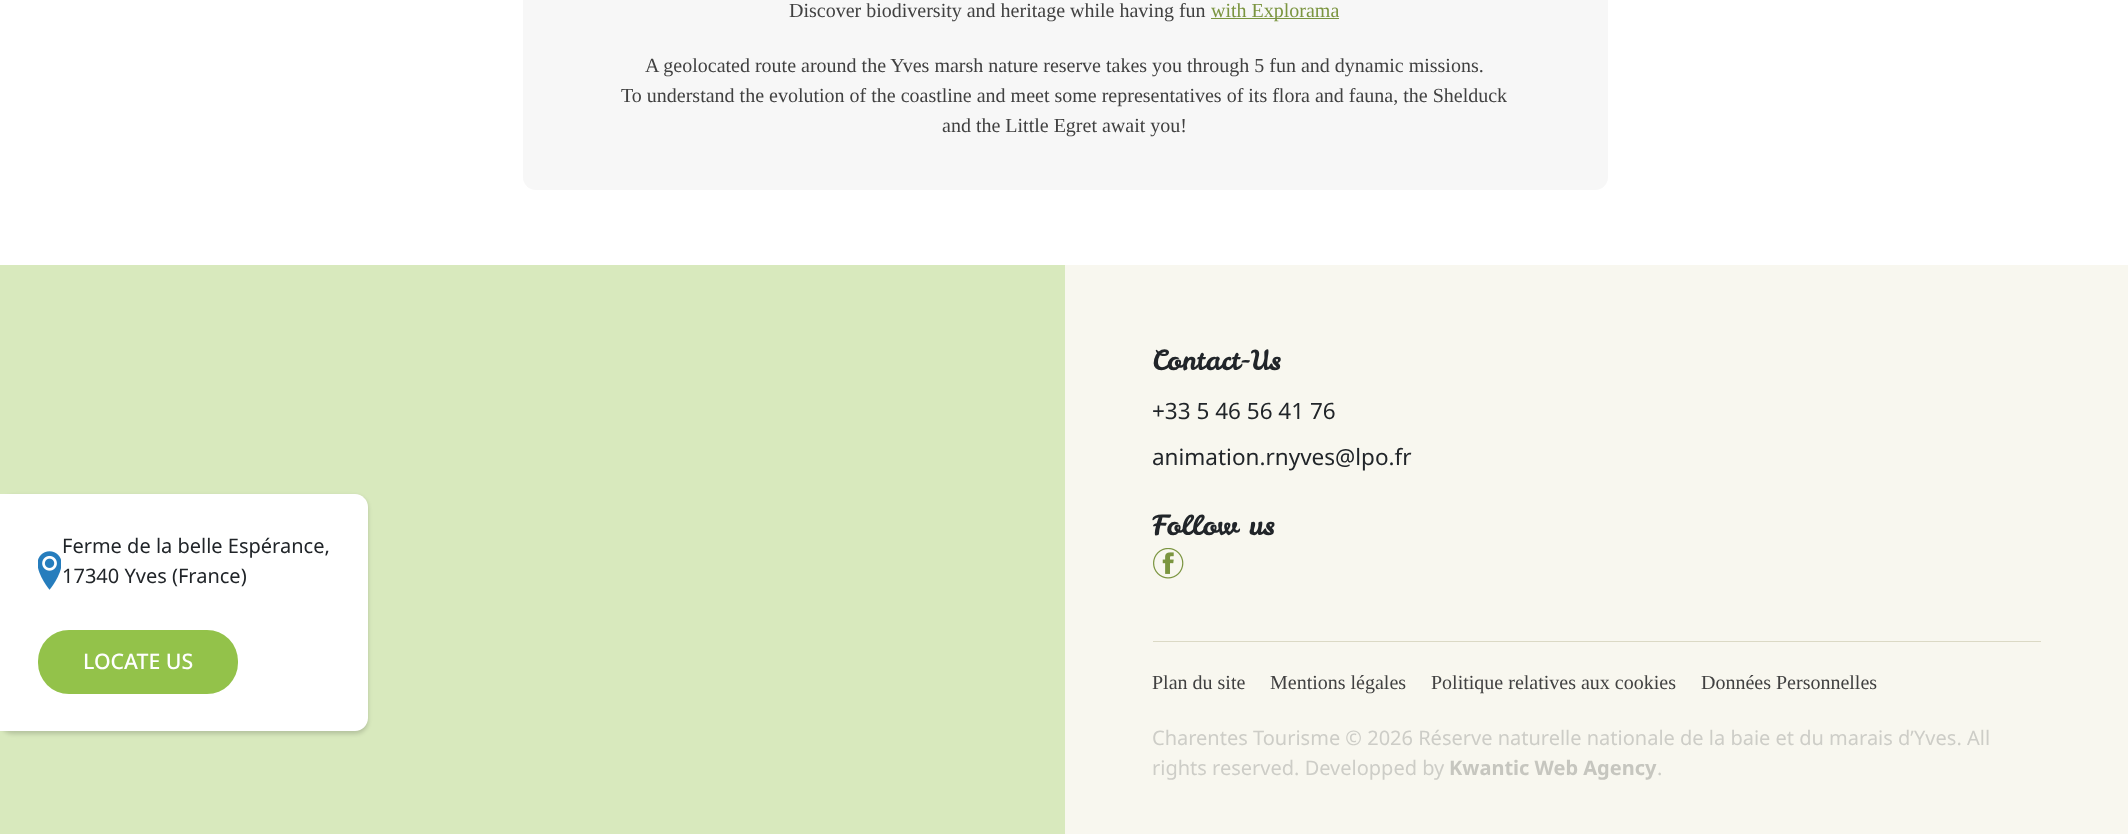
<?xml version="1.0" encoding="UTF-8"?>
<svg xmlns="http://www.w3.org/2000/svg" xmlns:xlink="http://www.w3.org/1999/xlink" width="2128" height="834">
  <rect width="100%" height="100%" fill="#ffffff" />
  <rect x="523" y="-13" width="1085" height="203" rx="13" fill="#f7f7f7" />
  <rect x="1211" y="18" width="128" height="1" fill="#7b9540" />
  <rect y="265" width="1065" height="569" fill="#d8e9bd" />
  <rect y="496" width="368" height="238" rx="13" fill="#000000" fill-opacity="0.16" filter="blur(2px)" />
  <path d="M 0 494 h 355 c 7 0 13 6 13 13 v 211 c 0 7 -6 13 -13 13 h -355 z" fill="#ffffff" />
  <image x="38" y="551" width="23" height="39" xlink:href="image1.png" />
  <rect x="38" y="630" width="200" height="64" rx="31" fill="#93c24a" />
  <rect x="1065" y="265" width="1063" height="569" fill="#f8f7ef" />
  <image x="1153" y="548" width="31" height="31" xlink:href="image2.png" />
  <rect x="1153" y="641" width="888" height="1" fill="#dbd9c5" />
  <text x="789" y="17" style="font-family: Liberation Serif; font-size: 20px; fill: #414141">Discover biodiversity and heritage while having fun</text>
  <text x="1211" y="17" style="font-family: Liberation Serif; font-size: 20px; fill: #7b9540">with Explorama</text>
  <text x="645" y="72" style="font-family: Liberation Serif; font-size: 20px; fill: #414141">A geolocated route around the Yves marsh nature reserve takes you through 5 fun and dynamic missions.</text>
  <text x="621" y="102" style="font-family: Liberation Serif; font-size: 20px; fill: #414141">To understand the evolution of the coastline and meet some representatives of its flora and fauna, the Shelduck</text>
  <text x="942" y="132" style="font-family: Liberation Serif; font-size: 20px; fill: #414141">and the Little Egret await you!</text>
  <text x="62" y="553" style="font-family: Noto Sans; font-size: 20px; fill: #212529">Ferme de la belle Espérance,</text>
  <text x="62" y="583" style="font-family: Noto Sans; font-size: 20px; fill: #212529">17340 Yves (France)</text>
  <text x="83" y="669" style="font-family: Noto Sans; font-size: 21.25px; font-weight: 500; fill: #ffffff">LOCATE US</text>
  <text x="1152" y="370" style="font-family: Leckerli One; font-size: 27.5px; fill: #212529">Contact-Us</text>
  <text x="1152" y="419" style="font-family: Noto Sans; font-size: 22.5px; fill: #212529">+33 5 46 56 41 76</text>
  <text x="1152" y="465" style="font-family: Noto Sans; font-size: 22.5px; fill: #212529">animation.rnyves@lpo.fr</text>
  <text x="1152" y="535" style="font-family: Leckerli One; font-size: 27.5px; fill: #212529">Follow us</text>
  <text x="1152" y="689" style="font-family: Liberation Serif; font-size: 20px; fill: #414141">Plan du site</text>
  <text x="1270" y="689" style="font-family: Liberation Serif; font-size: 20px; fill: #414141">Mentions légales</text>
  <text x="1431" y="689" style="font-family: Liberation Serif; font-size: 20px; fill: #414141">Politique relatives aux cookies</text>
  <text x="1701" y="689" style="font-family: Liberation Serif; font-size: 20px; fill: #414141">Données Personnelles</text>
  <text x="1152" y="745" style="font-family: Noto Sans; font-size: 20px; fill: #cdcdc7">Charentes Tourisme © 2026 Réserve naturelle nationale de la baie et du marais d’Yves. All</text>
  <text x="1152" y="775" style="font-family: Noto Sans; font-size: 20px; fill: #cdcdc7">rights reserved. Developped by</text>
  <text x="1449" y="775" style="font-family: Noto Sans; font-size: 20px; font-weight: bold; fill: #c6c6bf">Kwantic Web Agency</text>
  <text x="1657" y="775" style="font-family: Noto Sans; font-size: 20px; fill: #cdcdc7">.</text>
</svg>
